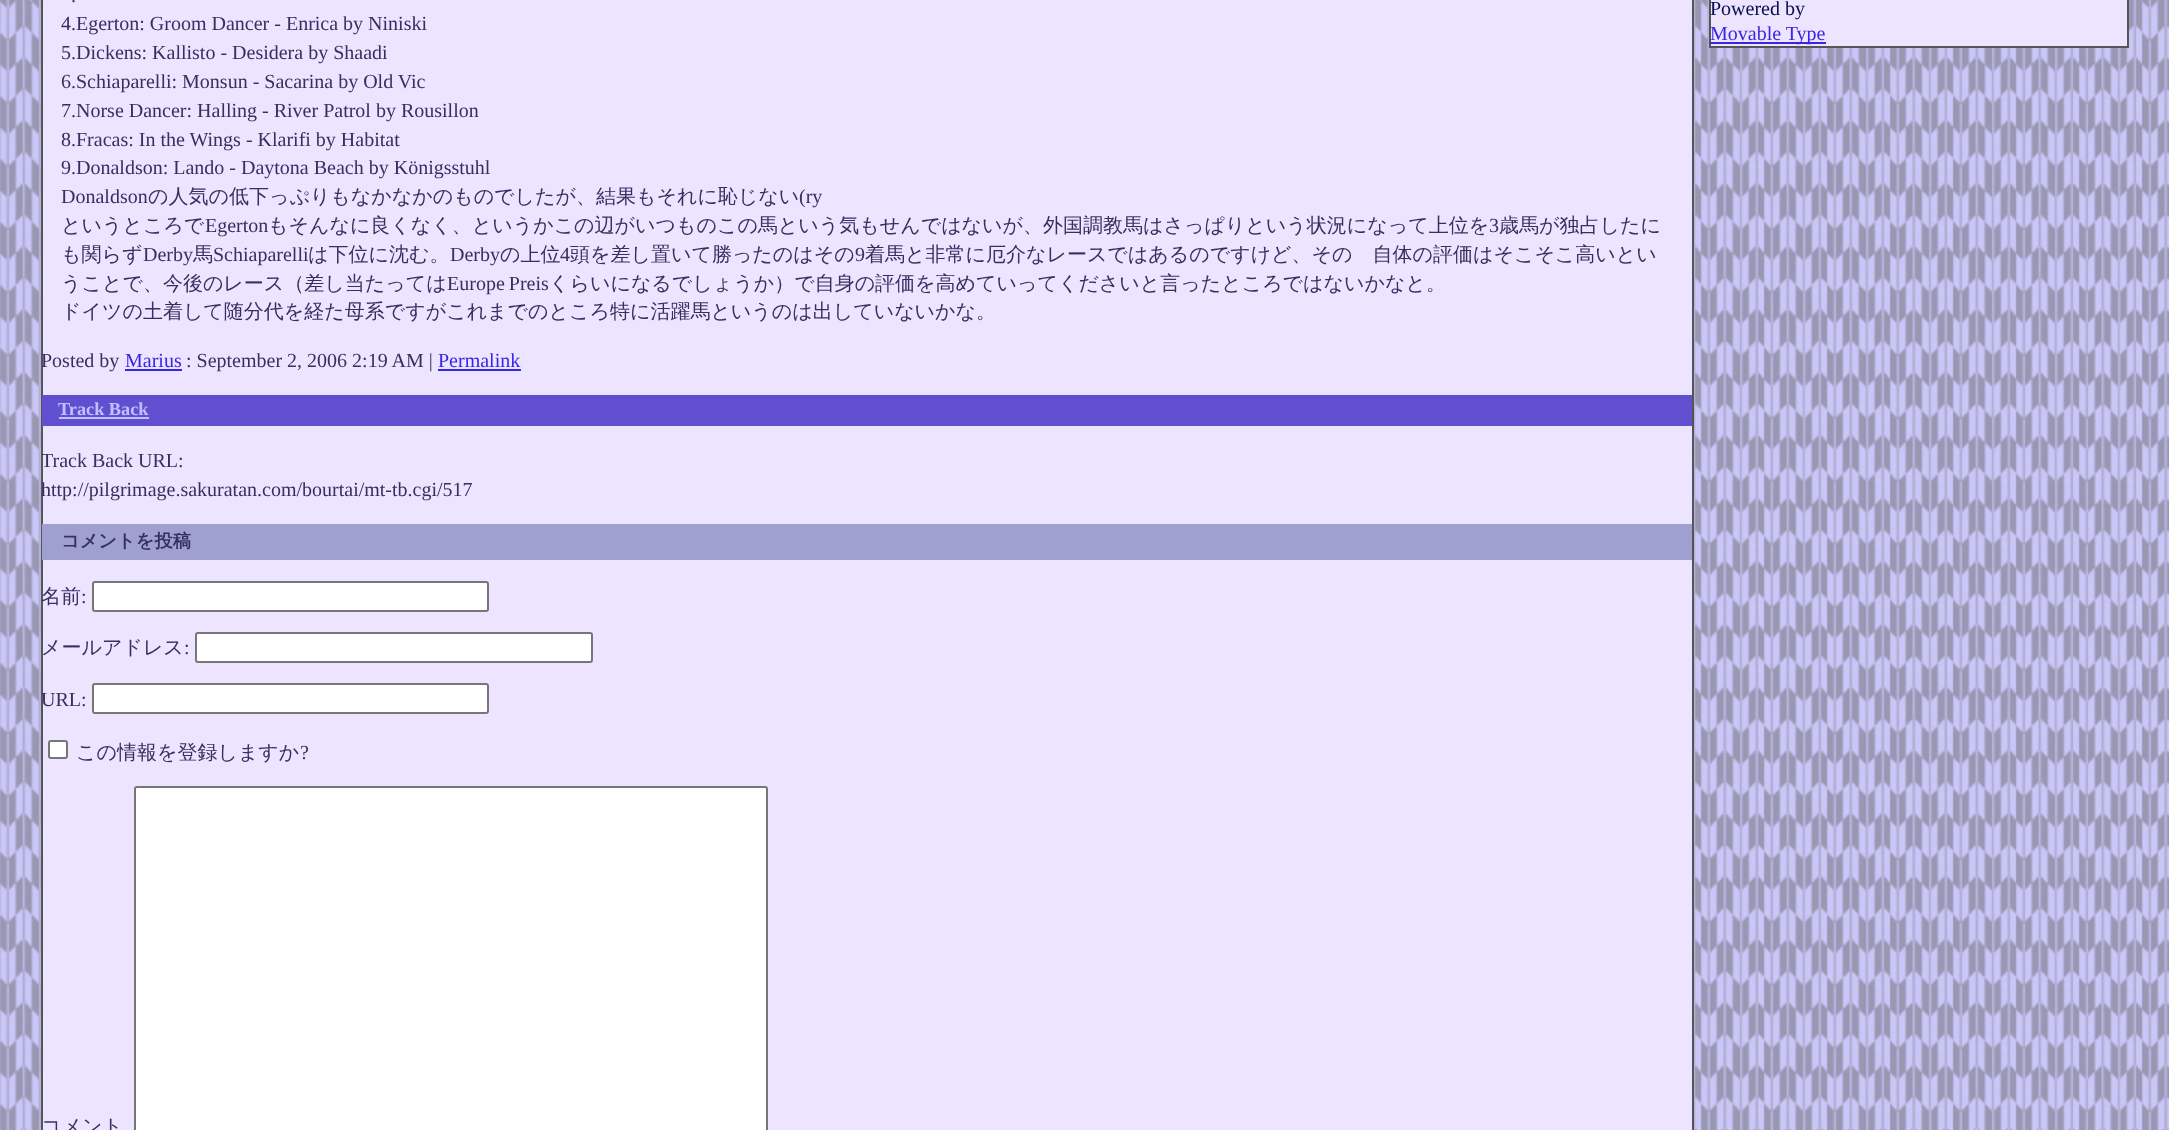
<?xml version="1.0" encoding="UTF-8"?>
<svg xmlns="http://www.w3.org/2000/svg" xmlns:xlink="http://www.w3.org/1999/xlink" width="2169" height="1130">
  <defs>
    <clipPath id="clip1"><rect x="42" width="1650" height="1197" /></clipPath>
  </defs>
  <rect width="100%" height="100%" fill="#ffffff" />
  <image x="0" y="0" width="2169" height="1130" xlink:href="image1.png" />
  <rect x="42" y="-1" width="1651" height="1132" fill="#ede4ff" stroke="#555555" stroke-width="2" />
  <rect x="125" y="369" width="57" height="2" fill="#3626e6" />
  <rect x="438" y="369" width="83" height="2" fill="#3626e6" />
  <rect x="42" y="395" width="1650" height="31" fill="#6050d0" />
  <rect x="59" y="417" width="90" height="2" fill="#c0c0ff" />
  <rect x="42" y="524" width="1650" height="36" fill="#a0a0d0" />
  <rect x="93" y="582" width="395" height="29" rx="2" fill="#ffffff" stroke="#767676" stroke-width="2" />
  <rect x="196" y="633" width="396" height="29" rx="2" fill="#ffffff" stroke="#767676" stroke-width="2" />
  <rect x="93" y="684" width="395" height="29" rx="2" fill="#ffffff" stroke="#767676" stroke-width="2" />
  <rect x="49" y="741" width="18" height="17" rx="2" fill="#ffffff" stroke="#767676" stroke-width="2" />
  <rect x="135" y="787" width="632" height="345" rx="2" fill="#ffffff" stroke="#767676" stroke-width="2" />
  <rect x="1710" y="-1" width="418" height="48" fill="#ede4ff" stroke="#555555" stroke-width="2" />
  <rect x="1710" y="42" width="116" height="2" fill="#3626e6" />
  <text x="71" y="2" style="font-family: Liberation Serif; font-size: 20px; fill: #363060">.</text>
  <text x="61" y="30" style="font-family: Liberation Serif; font-size: 20px; fill: #363060">4.Egerton: Groom Dancer - Enrica by Niniski</text>
  <text x="61" y="59" style="font-family: Liberation Serif; font-size: 20px; fill: #363060">5.Dickens: Kallisto - Desidera by Shaadi</text>
  <text x="61" y="88" style="font-family: Liberation Serif; font-size: 20px; fill: #363060">6.Schiaparelli: Monsun - Sacarina by Old Vic</text>
  <text x="61" y="117" style="font-family: Liberation Serif; font-size: 20px; fill: #363060">7.Norse Dancer: Halling - River Patrol by Rousillon</text>
  <text x="61" y="146" style="font-family: Liberation Serif; font-size: 20px; fill: #363060">8.Fracas: In the Wings - Klarifi by Habitat</text>
  <text x="61" y="174" style="font-family: Liberation Serif; font-size: 20px; fill: #363060">9.Donaldson: Lando - Daytona Beach by Königsstuhl</text>
  <text x="61" y="203" style="font-family: Liberation Serif; font-size: 20px; fill: #363060">Donaldson</text>
  <text x="148" y="203" style="font-family: WenQuanYi Zen Hei; font-size: 20px; font-weight: 500; fill: #363060">の人気の低下っぷりもなかなかのものでしたが、結果もそれに恥じない</text>
  <text x="799" y="203" style="font-family: Liberation Serif; font-size: 20px; fill: #363060">(ry</text>
  <text x="61" y="232" style="font-family: WenQuanYi Zen Hei; font-size: 20px; font-weight: 500; fill: #363060">というところで</text>
  <text x="205" y="232" style="font-family: Liberation Serif; font-size: 20px; fill: #363060">Egerton</text>
  <text x="268" y="232" style="font-family: WenQuanYi Zen Hei; font-size: 20px; font-weight: 500; fill: #363060">もそんなに良くなく、というかこの辺がいつものこの馬という気もせんではないが、外国調教馬はさっぱりという状況になって上位を</text>
  <text x="1489" y="232" style="font-family: Liberation Serif; font-size: 20px; fill: #363060">3</text>
  <text x="1499" y="232" style="font-family: WenQuanYi Zen Hei; font-size: 20px; font-weight: 500; fill: #363060">歳馬が独占したに</text>
  <text x="61" y="261" style="font-family: WenQuanYi Zen Hei; font-size: 20px; font-weight: 500; fill: #363060">も関らず</text>
  <text x="143" y="261" style="font-family: Liberation Serif; font-size: 20px; fill: #363060">Derby</text>
  <text x="193" y="261" style="font-family: WenQuanYi Zen Hei; font-size: 20px; font-weight: 500; fill: #363060">馬</text>
  <text x="213" y="261" style="font-family: Liberation Serif; font-size: 20px; fill: #363060">Schiaparelli</text>
  <text x="308" y="261" style="font-family: WenQuanYi Zen Hei; font-size: 20px; font-weight: 500; fill: #363060">は下位に沈む。</text>
  <text x="450" y="261" style="font-family: Liberation Serif; font-size: 20px; fill: #363060">Derby</text>
  <text x="500" y="261" style="font-family: WenQuanYi Zen Hei; font-size: 20px; font-weight: 500; fill: #363060">の上位</text>
  <text x="560" y="261" style="font-family: Liberation Serif; font-size: 20px; fill: #363060">4</text>
  <text x="570" y="261" style="font-family: WenQuanYi Zen Hei; font-size: 20px; font-weight: 500; fill: #363060">頭を差し置いて勝ったのはその</text>
  <text x="855" y="261" style="font-family: Liberation Serif; font-size: 20px; fill: #363060">9</text>
  <text x="865" y="261" style="font-family: WenQuanYi Zen Hei; font-size: 20px; font-weight: 500; fill: #363060">着馬と非常に厄介なレースではあるのですけど、その　自体の評価はそこそこ高いとい</text>
  <text x="61" y="290" style="font-family: WenQuanYi Zen Hei; font-size: 20px; font-weight: 500; fill: #363060">うことで、今後のレース（差し当たっては</text>
  <text x="447" y="290" word-spacing="-1" style="font-family: Liberation Serif; font-size: 20px; fill: #363060">Europe Preis</text>
  <text x="549" y="290" style="font-family: WenQuanYi Zen Hei; font-size: 20px; font-weight: 500; fill: #363060">くらいになるでしょうか）で自身の評価を高めていってくださいと言ったところではないかなと。</text>
  <text x="61" y="318" style="font-family: WenQuanYi Zen Hei; font-size: 20px; font-weight: 500; fill: #363060">ドイツの土着して随分代を経た母系ですがこれまでのところ特に活躍馬というのは出していないかな。</text>
  <text x="41" y="367" style="font-family: Liberation Serif; font-size: 20px; fill: #363060">Posted by</text>
  <text x="125" y="367" style="font-family: Liberation Serif; font-size: 20px; fill: #3626e6">Marius</text>
  <text x="186" y="367" style="font-family: Liberation Serif; font-size: 20px; fill: #363060">: September 2, 2006 2:19 AM |</text>
  <text x="438" y="367" style="font-family: Liberation Serif; font-size: 20px; fill: #3626e6">Permalink</text>
  <text x="58" y="415" style="font-family: Liberation Serif; font-size: 18.25px; font-weight: bold; fill: #c0c0ff">Track Back</text>
  <g clip-path="url(#clip1)">
    <text x="41" y="467" style="font-family: Liberation Serif; font-size: 20px; fill: #363060">Track Back URL:</text>
  </g>
  <text x="41" y="496" style="font-family: Liberation Serif; font-size: 20px; fill: #363060">http://pilgrimage.sakuratan.com/bourtai/mt-tb.cgi/517</text>
  <text x="61" y="547" style="font-family: WenQuanYi Zen Hei; font-size: 18.25px; font-weight: bold; fill: #363060">コメントを投稿</text>
  <text x="41" y="603" style="font-family: WenQuanYi Zen Hei; font-size: 20px; font-weight: 500; fill: #363060">名前</text>
  <text x="81" y="603" style="font-family: Liberation Serif; font-size: 20px; fill: #363060">:</text>
  <text x="41" y="654" style="font-family: WenQuanYi Zen Hei; font-size: 20px; font-weight: 500; fill: #363060">メールアドレス</text>
  <text x="184" y="654" style="font-family: Liberation Serif; font-size: 20px; fill: #363060">:</text>
  <text x="41" y="706" style="font-family: Liberation Serif; font-size: 20px; fill: #363060">URL:</text>
  <text x="76" y="759" style="font-family: WenQuanYi Zen Hei; font-size: 20px; font-weight: 500; fill: #363060">この情報を登録しますか</text>
  <text x="300" y="759" style="font-family: Liberation Serif; font-size: 20px; fill: #363060">?</text>
  <text x="41" y="1133" style="font-family: WenQuanYi Zen Hei; font-size: 20px; font-weight: 500; fill: #363060">コメント</text>
  <text x="1710" y="15" style="font-family: Liberation Serif; font-size: 20px; fill: #060d4d">Powered by</text>
  <text x="1710" y="40" style="font-family: Liberation Serif; font-size: 20px; fill: #3626e6">Movable Type</text>
</svg>
